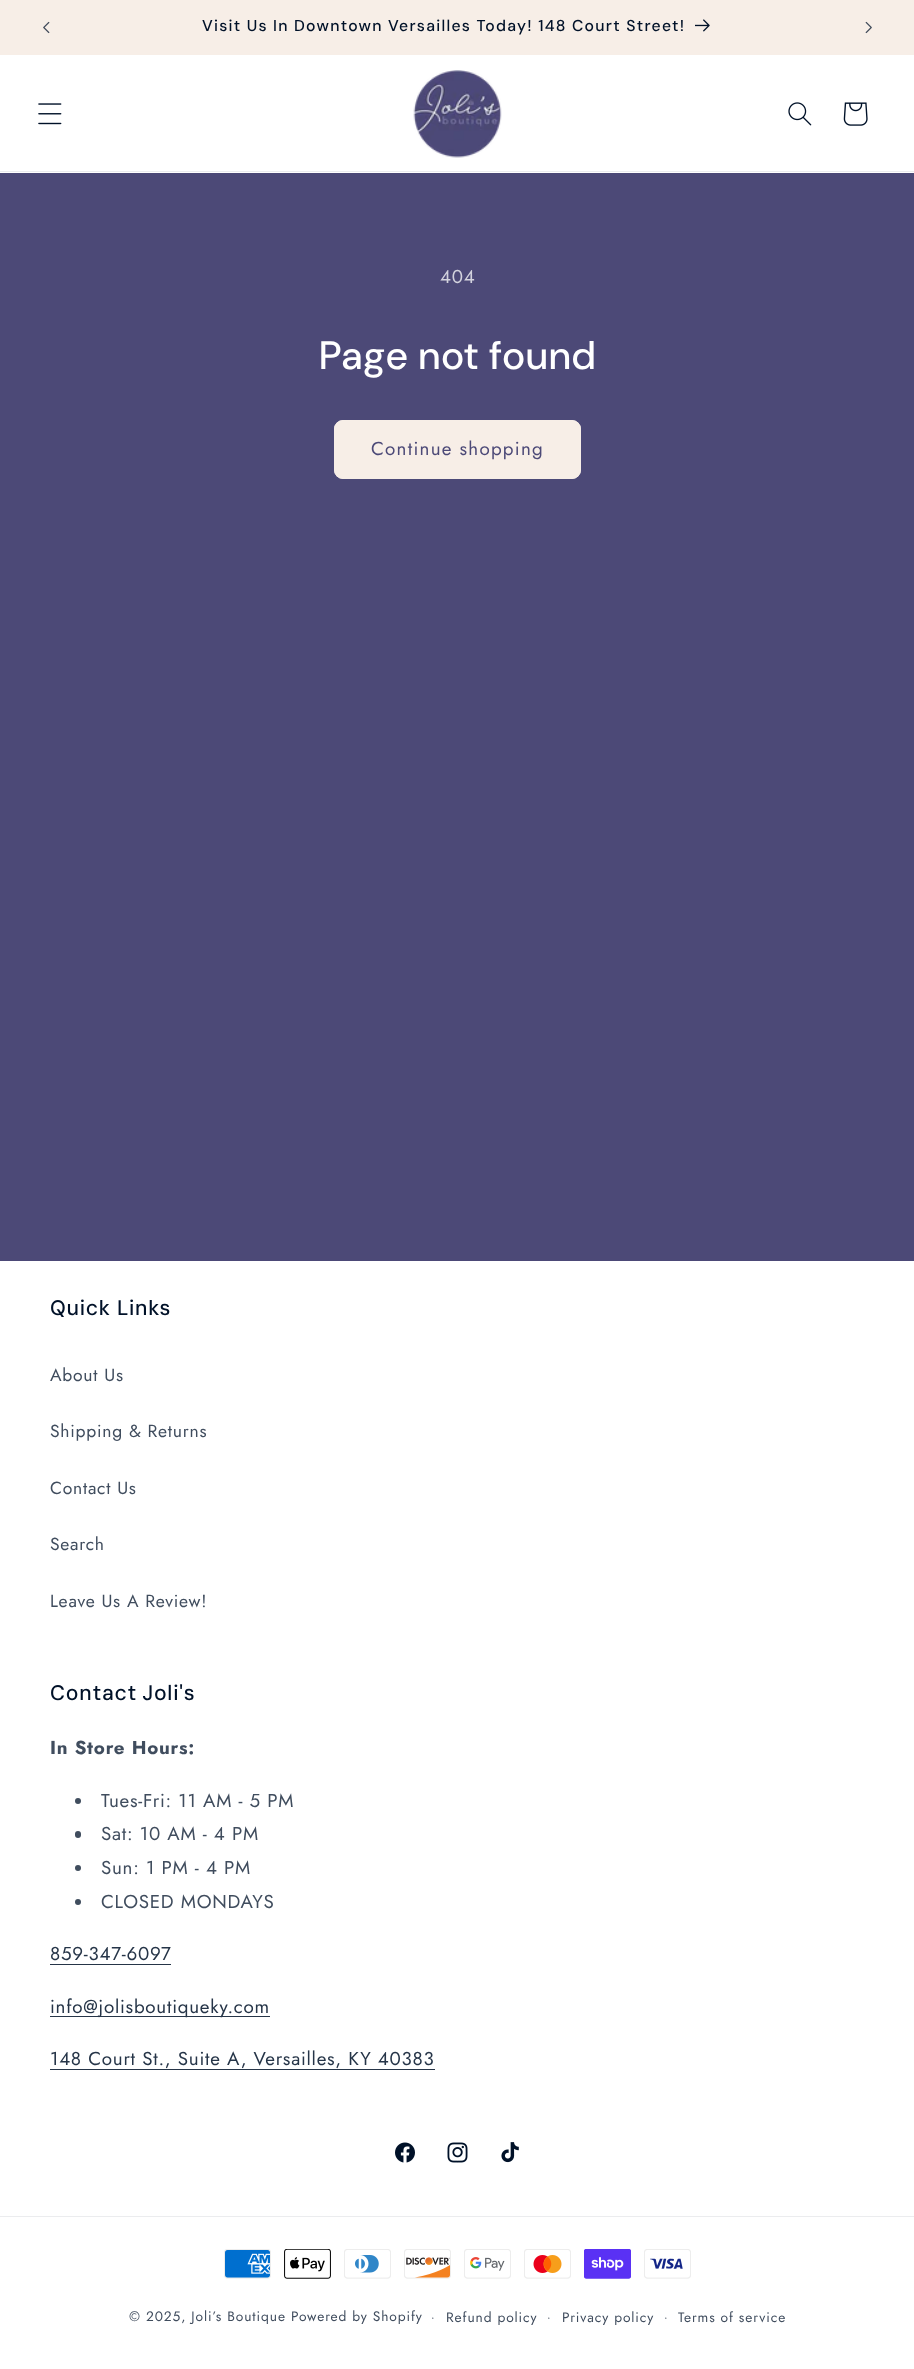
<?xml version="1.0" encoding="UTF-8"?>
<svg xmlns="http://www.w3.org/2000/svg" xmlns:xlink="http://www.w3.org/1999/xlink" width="914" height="2369">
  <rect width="100%" height="100%" fill="#4c4977" />
  <rect width="914" height="55" fill="#f7eee7" />
  <image x="43" y="21" width="7" height="13" xlink:href="image1.png" />
  <image x="695" y="19" width="15" height="13" xlink:href="image2.png" />
  <image x="865" y="21" width="7" height="13" xlink:href="image3.png" />
  <rect y="55" width="914" height="118" fill="#ffffff" />
  <rect y="171" width="914" height="1" fill="#ebecee" />
  <image x="38" y="103" width="24" height="22" xlink:href="image4.png" />
  <image x="413" y="70" width="89" height="88" xlink:href="image5.png" />
  <image x="788" y="102" width="24" height="24" xlink:href="image6.png" />
  <image x="843" y="102" width="25" height="24" xlink:href="image7.png" />
  <rect x="334" y="420" width="247" height="59" rx="9" fill="#f7eee7" />
  <rect x="334.5" y="420.5" width="246" height="58" rx="8.5" fill="none" stroke="#f7eee7" />
  <rect y="1261" width="914" height="1108" fill="#ffffff" />
  <circle cx="78" cy="1801" r="3" fill="#404d5e" />
  <rect x="75" y="1831" width="6" height="7" rx="3" fill="#404d5e" />
  <circle cx="78" cy="1868" r="3" fill="#404d5e" />
  <circle cx="78" cy="1902" r="3" fill="#404d5e" />
  <rect x="50" y="1964" width="121" height="1" fill="#263548" />
  <rect x="50" y="2016" width="220" height="1" fill="#263548" />
  <rect x="50" y="2069" width="385" height="1" fill="#263548" />
  <image x="395" y="2142" width="20" height="21" xlink:href="image8.png" />
  <image x="447" y="2142" width="21" height="21" xlink:href="image9.png" />
  <image x="501" y="2142" width="18" height="21" xlink:href="image10.png" />
  <rect y="2216" width="914" height="1" fill="#ebecee" />
  <image x="224" y="2249" width="47" height="30" xlink:href="image11.png" />
  <image x="284" y="2249" width="47" height="30" xlink:href="image12.png" />
  <image x="344" y="2249" width="47" height="30" xlink:href="image13.png" />
  <image x="404" y="2249" width="47" height="30" xlink:href="image14.png" />
  <image x="464" y="2249" width="47" height="30" xlink:href="image15.png" />
  <image x="524" y="2249" width="47" height="30" xlink:href="image16.png" />
  <image x="584" y="2249" width="47" height="30" xlink:href="image17.png" />
  <image x="644" y="2249" width="47" height="30" xlink:href="image18.png" />
  <text x="202" y="31" style="font-family: 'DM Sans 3'; font-size: 15.75px; font-weight: 500; letter-spacing: 1.25px; fill: #001128">Visit Us In Downtown Versailles Today! 148 Court Street!</text>
  <text x="440" y="283" style="font-family: Jost; font-size: 18.75px; letter-spacing: 0.75px; fill: #d2d2dd">404</text>
  <text x="319" y="369" style="font-family: DM Sans; font-size: 39.5px; font-weight: 500; letter-spacing: 0.75px; fill: #ffffff">Page not found</text>
  <text x="371" y="455" style="font-family: Jost; font-size: 18.75px; letter-spacing: 1.25px; fill: #4c4977">Continue shopping</text>
  <text x="50" y="1315" style="font-family: 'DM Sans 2'; font-size: 21px; font-weight: 500; letter-spacing: 0.75px; fill: #001128">Quick Links</text>
  <text x="50" y="1381" style="font-family: Jost; font-size: 17.5px; letter-spacing: 0.75px; fill: #404d5e">About Us</text>
  <text x="50" y="1437" style="font-family: Jost; font-size: 17.5px; letter-spacing: 0.75px; fill: #404d5e">Shipping &amp; Returns</text>
  <text x="50" y="1494" style="font-family: Jost; font-size: 17.5px; letter-spacing: 0.75px; fill: #404d5e">Contact Us</text>
  <text x="50" y="1550" style="font-family: Jost; font-size: 17.5px; letter-spacing: 0.75px; fill: #404d5e">Search</text>
  <text x="50" y="1607" style="font-family: Jost; font-size: 17.5px; letter-spacing: 0.75px; fill: #404d5e">Leave Us A Review!</text>
  <text x="50" y="1700" word-spacing="-1" style="font-family: 'DM Sans 2'; font-size: 21px; font-weight: 500; letter-spacing: 0.75px; fill: #001128">Contact Joli's</text>
  <text x="50" y="1754" style="font-family: Jost; font-size: 18.75px; font-weight: bold; letter-spacing: 0.75px; fill: #404d5e">In Store Hours:</text>
  <text x="101" y="1807" style="font-family: Jost; font-size: 18.75px; letter-spacing: 0.75px; fill: #404d5e">Tues-Fri: 11 AM - 5 PM</text>
  <text x="101" y="1840" style="font-family: Jost; font-size: 18.75px; letter-spacing: 0.75px; fill: #404d5e">Sat: 10 AM - 4 PM</text>
  <text x="101" y="1874" style="font-family: Jost; font-size: 18.75px; letter-spacing: 0.75px; fill: #404d5e">Sun: 1 PM - 4 PM</text>
  <text x="101" y="1908" style="font-family: Jost; font-size: 18.75px; letter-spacing: 0.75px; fill: #404d5e">CLOSED MONDAYS</text>
  <text x="50" y="1960" style="font-family: Jost; font-size: 18.75px; letter-spacing: 0.75px; fill: #263548">859-347-6097</text>
  <text x="50" y="2013" style="font-family: Jost; font-size: 18.75px; letter-spacing: 0.75px; fill: #263548">info@jolisboutiqueky.com</text>
  <text x="50" y="2065" style="font-family: Jost; font-size: 18.75px; letter-spacing: 0.75px; fill: #263548">148 Court St., Suite A, Versailles, KY 40383</text>
  <text x="129" y="2321" style="font-family: Jost; font-size: 13.75px; letter-spacing: 0.9px; fill: #404d5e">© 2025, Joli’s Boutique Powered by Shopify</text>
  <text x="431" y="2321" style="font-family: Jost; font-size: 12px; letter-spacing: 0.9px; fill: #404d5e">·</text>
  <text x="446" y="2322" style="font-family: Jost; font-size: 13.75px; letter-spacing: 0.9px; fill: #404d5e">Refund policy</text>
  <text x="547" y="2321" style="font-family: Jost; font-size: 12px; letter-spacing: 0.9px; fill: #404d5e">·</text>
  <text x="562" y="2322" style="font-family: Jost; font-size: 13.75px; letter-spacing: 0.9px; fill: #404d5e">Privacy policy</text>
  <text x="664" y="2321" style="font-family: Jost; font-size: 12px; letter-spacing: 0.9px; fill: #404d5e">·</text>
  <text x="678" y="2322" style="font-family: Jost; font-size: 13.75px; letter-spacing: 0.9px; fill: #404d5e">Terms of service</text>
</svg>
